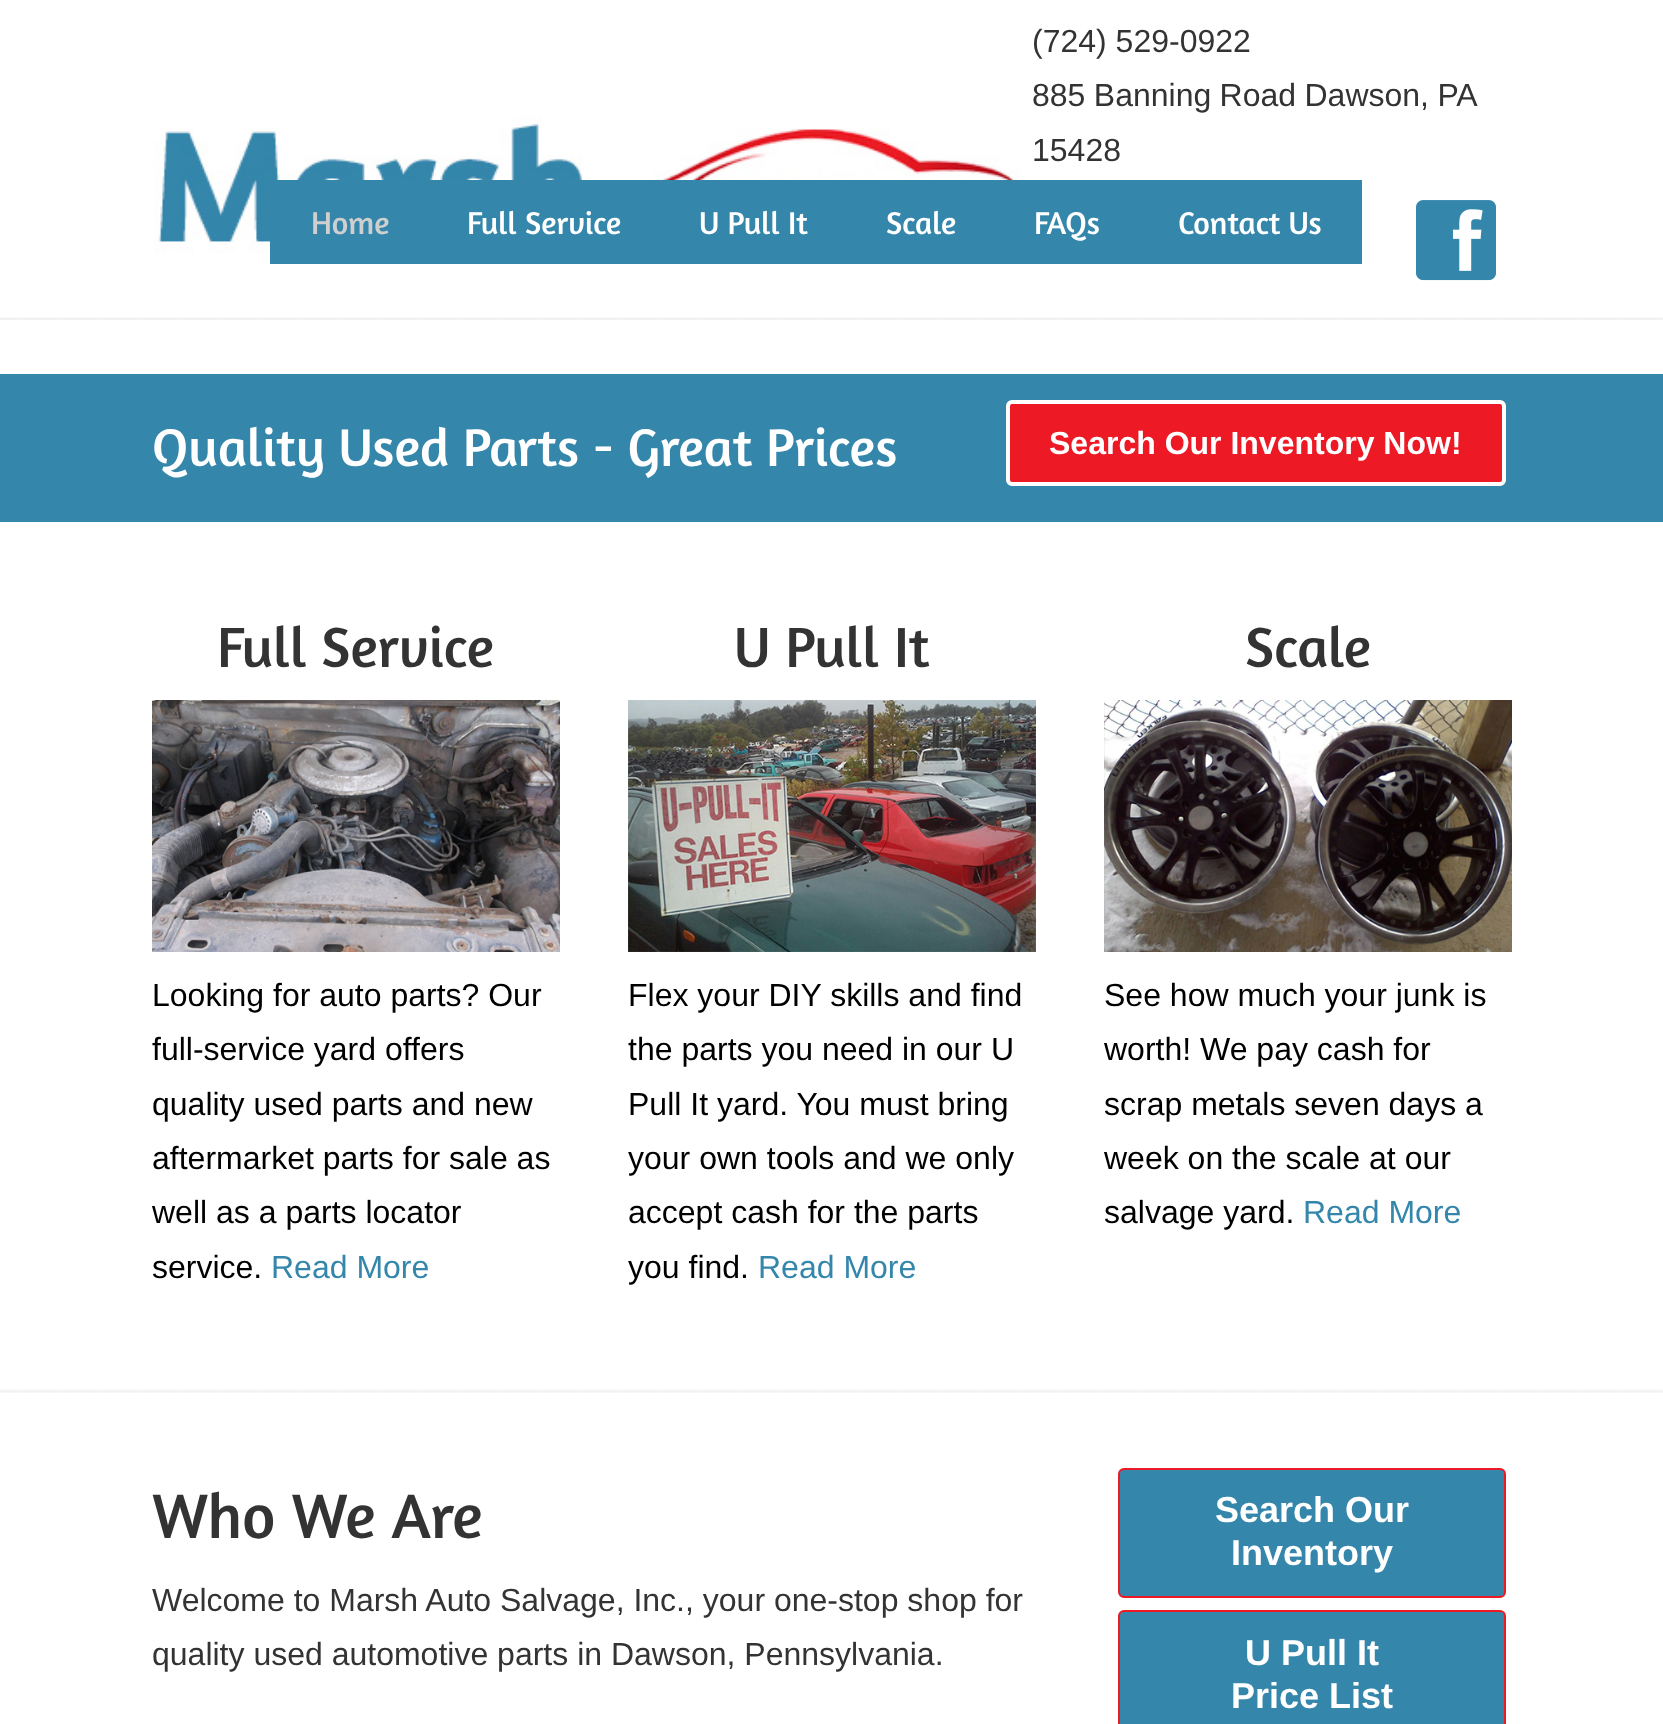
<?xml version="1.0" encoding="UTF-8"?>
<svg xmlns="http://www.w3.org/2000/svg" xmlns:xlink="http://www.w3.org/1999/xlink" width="1663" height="1724">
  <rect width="100%" height="100%" fill="#ffffff" />
  <image x="154" y="116" width="868" height="148" xlink:href="image1.png" />
  <rect x="270" y="180" width="1092" height="84" fill="#3486ab" />
  <image x="1416" y="200" width="80" height="81" xlink:href="image2.png" />
  <image x="0" y="317" width="1663" height="3" xlink:href="image3.png" />
  <rect y="374" width="1663" height="148" fill="#3486ab" />
  <rect x="1008" y="402" width="496" height="82" rx="4" fill="#ed1a26" stroke="#ffffff" stroke-width="4" />
  <image x="152" y="700" width="408" height="252" xlink:href="image4.png" />
  <image x="628" y="700" width="408" height="252" xlink:href="image5.png" />
  <image x="1104" y="700" width="408" height="252" xlink:href="image6.png" />
  <image x="0" y="1389" width="1663" height="4" xlink:href="image7.png" />
  <rect x="1119" y="1469" width="386" height="128" rx="5" fill="#3486ab" stroke="#ed1a26" stroke-width="2" />
  <rect x="1119" y="1611" width="386" height="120" rx="5" fill="#3486ab" stroke="#ed1a26" stroke-width="2" />
  <text x="1032" y="52" style="font-family: Liberation Sans; font-size: 32px; fill: #333333">(724) 529-0922</text>
  <text x="1032" y="106" word-spacing="-0.5" style="font-family: Liberation Sans; font-size: 32px; fill: #333333">885 Banning Road Dawson, PA</text>
  <text x="1032" y="161" style="font-family: Liberation Sans; font-size: 32px; fill: #333333">15428</text>
  <text x="311" y="234" style="font-family: Amaranth; font-size: 32px; fill: #cfcfcf">Home</text>
  <text x="467" y="234" style="font-family: Amaranth; font-size: 32px; fill: #ffffff">Full Service</text>
  <text x="699" y="234" style="font-family: Amaranth; font-size: 32px; fill: #ffffff">U Pull It</text>
  <text x="886" y="234" style="font-family: Amaranth; font-size: 32px; fill: #ffffff">Scale</text>
  <text x="1034" y="234" style="font-family: Amaranth; font-size: 32px; fill: #ffffff">FAQs</text>
  <text x="1178" y="234" style="font-family: Amaranth; font-size: 32px; fill: #ffffff">Contact Us</text>
  <text x="152" y="466" style="font-family: Amaranth; font-size: 54px; fill: #ffffff">Quality Used Parts - Great Prices</text>
  <text x="1049" y="454" style="font-family: Liberation Sans; font-size: 32px; font-weight: bold; fill: #ffffff">Search Our Inventory Now!</text>
  <text x="217" y="667" style="font-family: Amaranth; font-size: 57.5px; fill: #333333">Full Service</text>
  <text x="152" y="1006" style="font-family: Liberation Sans; font-size: 32px; fill: #000000">Looking for auto parts? Our</text>
  <text x="152" y="1060" style="font-family: Liberation Sans; font-size: 32px; fill: #000000">full-service yard offers</text>
  <text x="152" y="1115" style="font-family: Liberation Sans; font-size: 32px; fill: #000000">quality used parts and new</text>
  <text x="152" y="1169" style="font-family: Liberation Sans; font-size: 32px; fill: #000000">aftermarket parts for sale as</text>
  <text x="152" y="1223" style="font-family: Liberation Sans; font-size: 32px; fill: #000000">well as a parts locator</text>
  <text x="152" y="1278" style="font-family: Liberation Sans; font-size: 32px; fill: #000000">service.</text>
  <text x="271" y="1278" style="font-family: Liberation Sans; font-size: 32px; fill: #3486ab">Read More</text>
  <text x="734" y="667" style="font-family: Amaranth; font-size: 57.5px; fill: #333333">U Pull It</text>
  <text x="628" y="1006" style="font-family: Liberation Sans; font-size: 32px; fill: #000000">Flex your DIY skills and find</text>
  <text x="628" y="1060" style="font-family: Liberation Sans; font-size: 32px; fill: #000000">the parts you need in our U</text>
  <text x="628" y="1115" style="font-family: Liberation Sans; font-size: 32px; fill: #000000">Pull It yard. You must bring</text>
  <text x="628" y="1169" style="font-family: Liberation Sans; font-size: 32px; fill: #000000">your own tools and we only</text>
  <text x="628" y="1223" style="font-family: Liberation Sans; font-size: 32px; fill: #000000">accept cash for the parts</text>
  <text x="628" y="1278" style="font-family: Liberation Sans; font-size: 32px; fill: #000000">you find.</text>
  <text x="758" y="1278" style="font-family: Liberation Sans; font-size: 32px; fill: #3486ab">Read More</text>
  <text x="1245" y="667" style="font-family: Amaranth; font-size: 57.5px; fill: #333333">Scale</text>
  <text x="1104" y="1006" style="font-family: Liberation Sans; font-size: 32px; fill: #000000">See how much your junk is</text>
  <text x="1104" y="1060" style="font-family: Liberation Sans; font-size: 32px; fill: #000000">worth! We pay cash for</text>
  <text x="1104" y="1115" style="font-family: Liberation Sans; font-size: 32px; fill: #000000">scrap metals seven days a</text>
  <text x="1104" y="1169" style="font-family: Liberation Sans; font-size: 32px; fill: #000000">week on the scale at our</text>
  <text x="1104" y="1223" style="font-family: Liberation Sans; font-size: 32px; fill: #000000">salvage yard.</text>
  <text x="1303" y="1223" style="font-family: Liberation Sans; font-size: 32px; fill: #3486ab">Read More</text>
  <text x="152" y="1538" style="font-family: Amaranth; font-size: 64px; fill: #333333">Who We Are</text>
  <text x="152" y="1611" style="font-family: Liberation Sans; font-size: 32px; fill: #333333">Welcome to Marsh Auto Salvage, Inc., your one-stop shop for</text>
  <text x="152" y="1665" style="font-family: Liberation Sans; font-size: 32px; fill: #333333">quality used automotive parts in Dawson, Pennsylvania.</text>
  <text x="1215" y="1522" style="font-family: Liberation Sans; font-size: 36px; font-weight: bold; fill: #ffffff">Search Our</text>
  <text x="1231" y="1565" style="font-family: Liberation Sans; font-size: 36px; font-weight: bold; fill: #ffffff">Inventory</text>
  <text x="1245" y="1665" style="font-family: Liberation Sans; font-size: 36px; font-weight: bold; fill: #ffffff">U Pull It</text>
  <text x="1231" y="1708" style="font-family: Liberation Sans; font-size: 36px; font-weight: bold; fill: #ffffff">Price List</text>
</svg>
